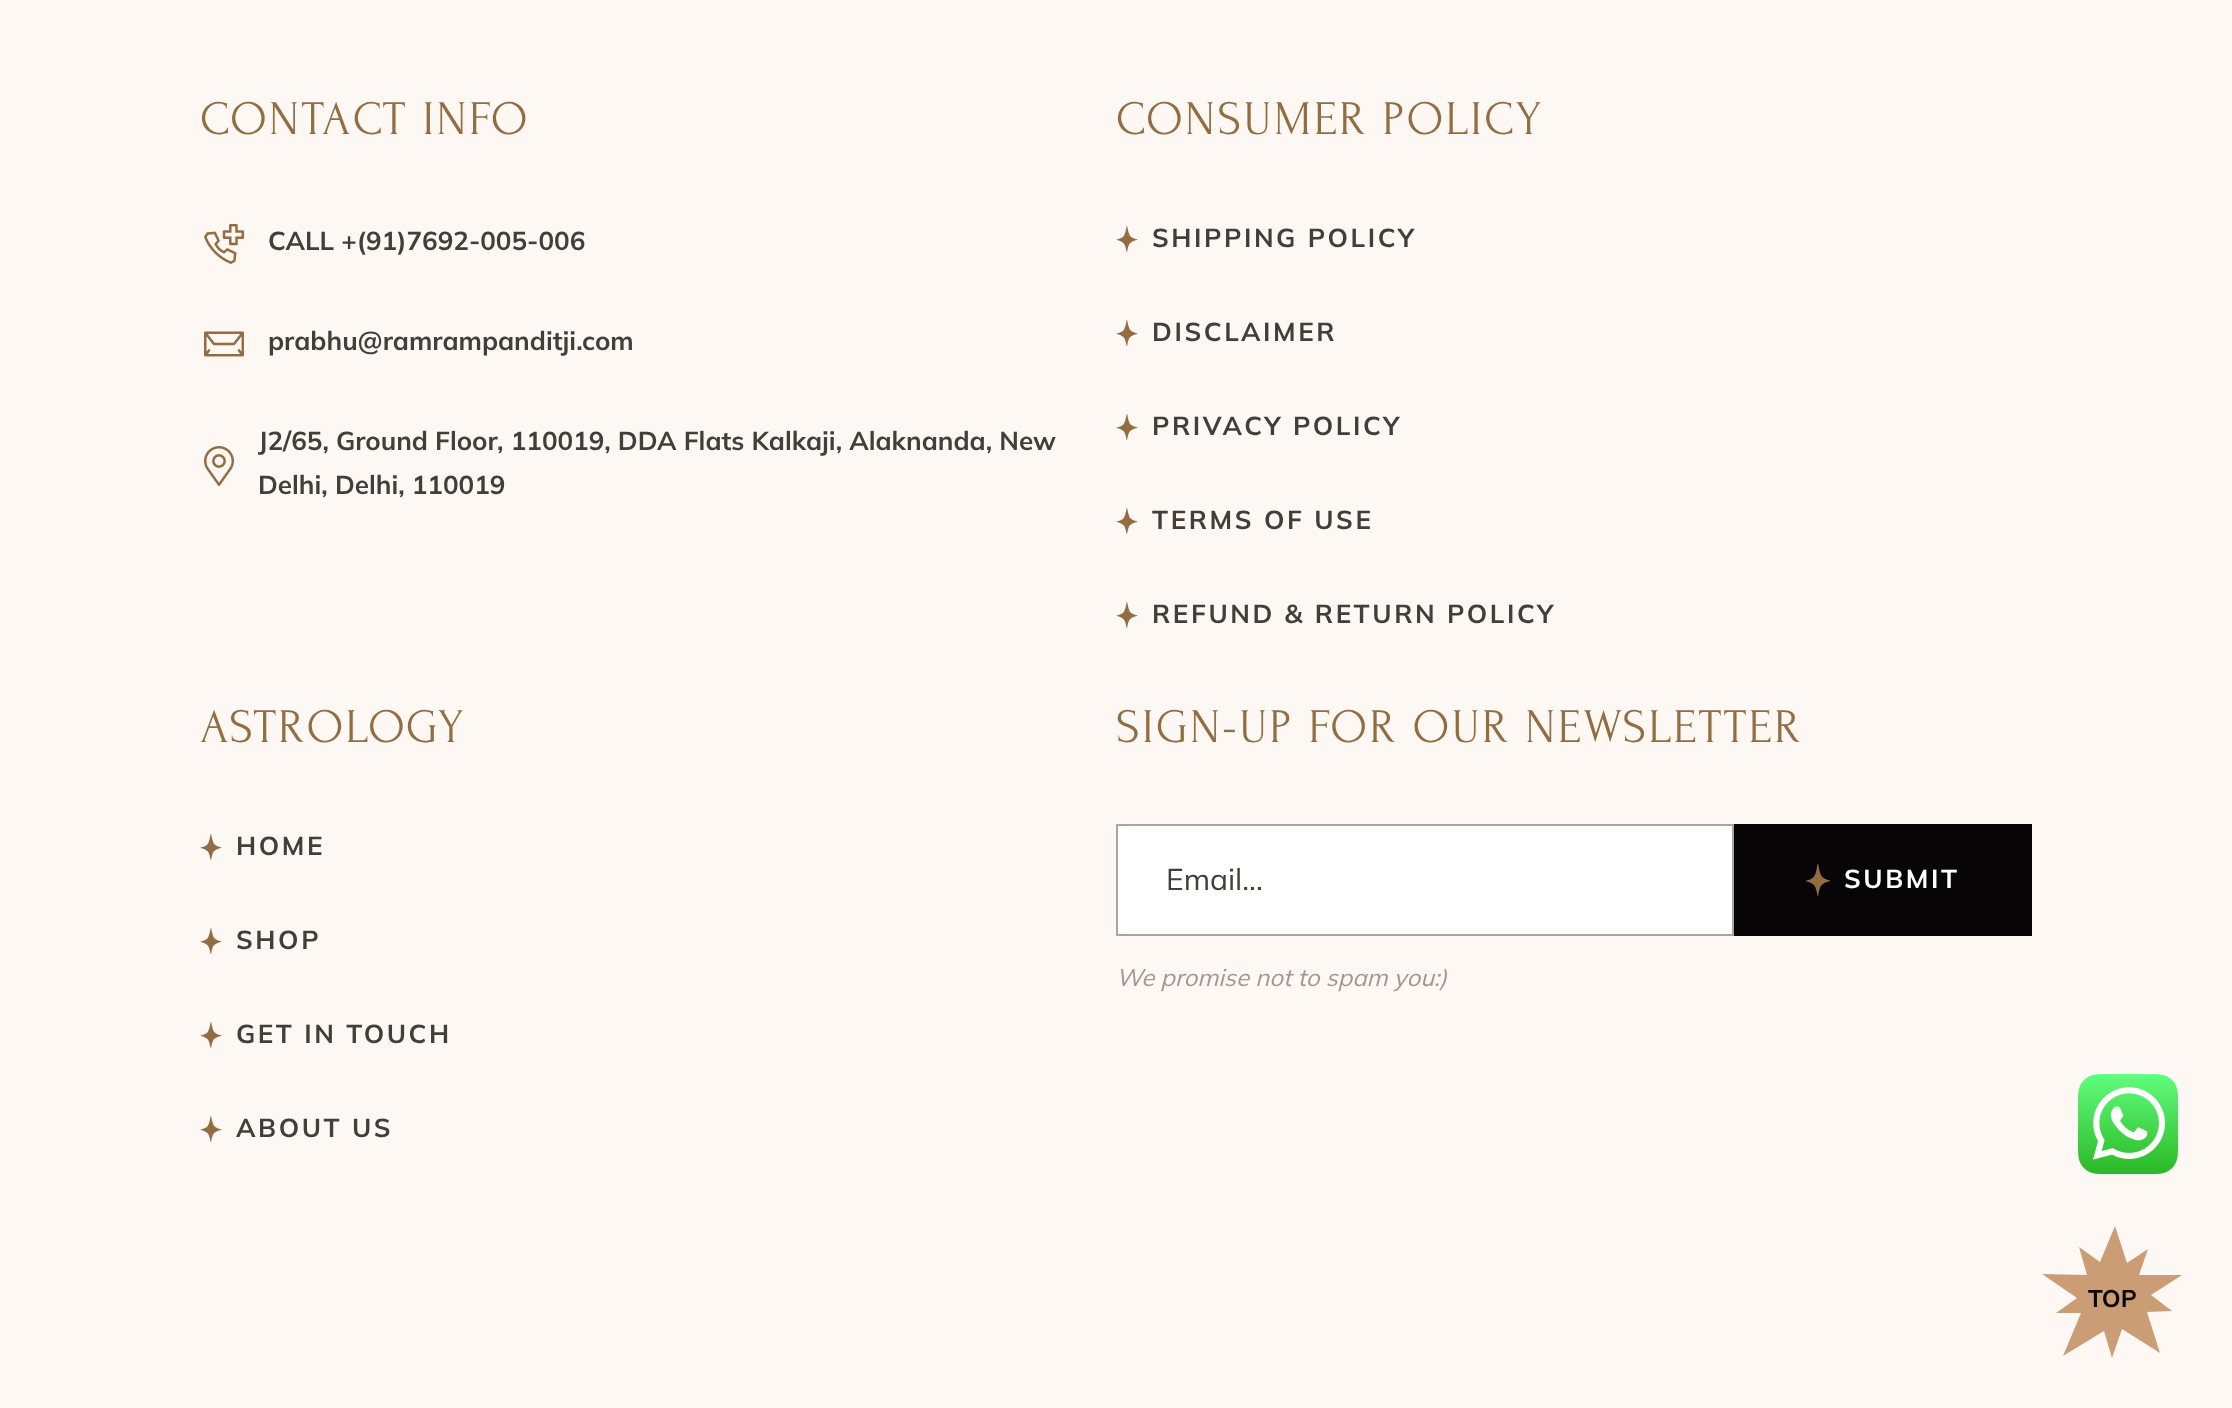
<?xml version="1.0" encoding="UTF-8"?>
<svg xmlns="http://www.w3.org/2000/svg" xmlns:xlink="http://www.w3.org/1999/xlink" width="2232" height="1408">
  <rect width="100%" height="100%" fill="#fdf8f4" />
  <image x="204" y="224" width="41" height="40" xlink:href="image1.png" />
  <image x="204" y="331" width="40" height="26" xlink:href="image2.png" />
  <image x="204" y="446" width="30" height="40" xlink:href="image3.png" />
  <image x="1116" y="226" width="22" height="26" xlink:href="image4.png" />
  <image x="1116" y="320" width="22" height="26" xlink:href="image4.png" />
  <image x="1116" y="414" width="22" height="26" xlink:href="image4.png" />
  <image x="1116" y="508" width="22" height="26" xlink:href="image4.png" />
  <image x="1116" y="602" width="22" height="26" xlink:href="image4.png" />
  <image x="200" y="834" width="22" height="26" xlink:href="image4.png" />
  <image x="200" y="928" width="22" height="26" xlink:href="image4.png" />
  <image x="200" y="1022" width="22" height="26" xlink:href="image4.png" />
  <image x="200" y="1116" width="22" height="26" xlink:href="image4.png" />
  <rect x="1117" y="825" width="616" height="110" fill="#ffffff" stroke="#aaa59d" stroke-width="2" />
  <rect x="1734" y="824" width="298" height="112" fill="#070506" />
  <image x="1806" y="864" width="24" height="32" xlink:href="image5.png" />
  <path d="M 2151 1295 l 31 -20 h -43 l 9 -26 l -21 14 l -12 -37 l -15 36 l -21 -15 l 8 28 l -45 -1 l 35 24 l -21 15 h 25 l -18 43 l 41 -25 l 8 27 l 10 -29 l 38 24 l -13 -41 l 25 -1 z" fill="#ca9d75" />
  <image x="2078" y="1074" width="100" height="100" xlink:href="image6.png" />
  <text x="200" y="134" style="font-family: Forum; font-size: 48px; letter-spacing: 2.4px; fill: #936d42">CONTACT INFO</text>
  <text x="268" y="250" style="font-family: Mulish; font-size: 26px; font-weight: bold; fill: #433e37">CALL +(91)7692-005-006</text>
  <text x="268" y="350" style="font-family: Mulish; font-size: 26px; font-weight: bold; fill: #433e37">prabhu@ramrampanditji.com</text>
  <text x="258" y="450" style="font-family: Mulish; font-size: 26px; font-weight: bold; fill: #433e37">J2/65, Ground Floor, 110019, DDA Flats Kalkaji, Alaknanda, New</text>
  <text x="258" y="494" style="font-family: Mulish; font-size: 26px; font-weight: bold; fill: #433e37">Delhi, Delhi, 110019</text>
  <text x="1116" y="134" style="font-family: Forum; font-size: 48px; letter-spacing: 2.4px; fill: #936d42">CONSUMER POLICY</text>
  <text x="1152" y="247" style="font-family: Mulish; font-size: 26px; font-weight: bold; letter-spacing: 2.6px; fill: #433e37">SHIPPING POLICY</text>
  <text x="1152" y="341" style="font-family: Mulish; font-size: 26px; font-weight: bold; letter-spacing: 2.6px; fill: #433e37">DISCLAIMER</text>
  <text x="1152" y="435" style="font-family: Mulish; font-size: 26px; font-weight: bold; letter-spacing: 2.6px; fill: #433e37">PRIVACY POLICY</text>
  <text x="1152" y="529" style="font-family: Mulish; font-size: 26px; font-weight: bold; letter-spacing: 2.6px; fill: #433e37">TERMS OF USE</text>
  <text x="1152" y="623" style="font-family: Mulish; font-size: 26px; font-weight: bold; letter-spacing: 2.6px; fill: #433e37">REFUND &amp; RETURN POLICY</text>
  <text x="200" y="742" style="font-family: Forum; font-size: 48px; letter-spacing: 2.4px; fill: #936d42">ASTROLOGY</text>
  <text x="236" y="855" style="font-family: Mulish; font-size: 26px; font-weight: bold; letter-spacing: 2.6px; fill: #433e37">HOME</text>
  <text x="236" y="949" style="font-family: Mulish; font-size: 26px; font-weight: bold; letter-spacing: 2.6px; fill: #433e37">SHOP</text>
  <text x="236" y="1043" style="font-family: Mulish; font-size: 26px; font-weight: bold; letter-spacing: 2.6px; fill: #433e37">GET IN TOUCH</text>
  <text x="236" y="1137" style="font-family: Mulish; font-size: 26px; font-weight: bold; letter-spacing: 2.6px; fill: #433e37">ABOUT US</text>
  <text x="1116" y="742" style="font-family: Forum; font-size: 48px; letter-spacing: 2.4px; fill: #936d42">SIGN-UP FOR OUR NEWSLETTER</text>
  <text x="1166" y="890" style="font-family: Mulish; font-size: 30px; fill: #433e37">Email...</text>
  <text x="1844" y="888" style="font-family: Mulish; font-size: 26px; font-weight: bold; letter-spacing: 2.6px; fill: #ffffff">SUBMIT</text>
  <text x="1116" y="986" style="font-family: Mulish; font-size: 24px; font-style: italic; fill: #a8948e">We promise not to spam you:)</text>
  <text x="2088" y="1307" style="font-family: Mulish; font-size: 24px; font-weight: bold; fill: #070506">TOP</text>
</svg>
